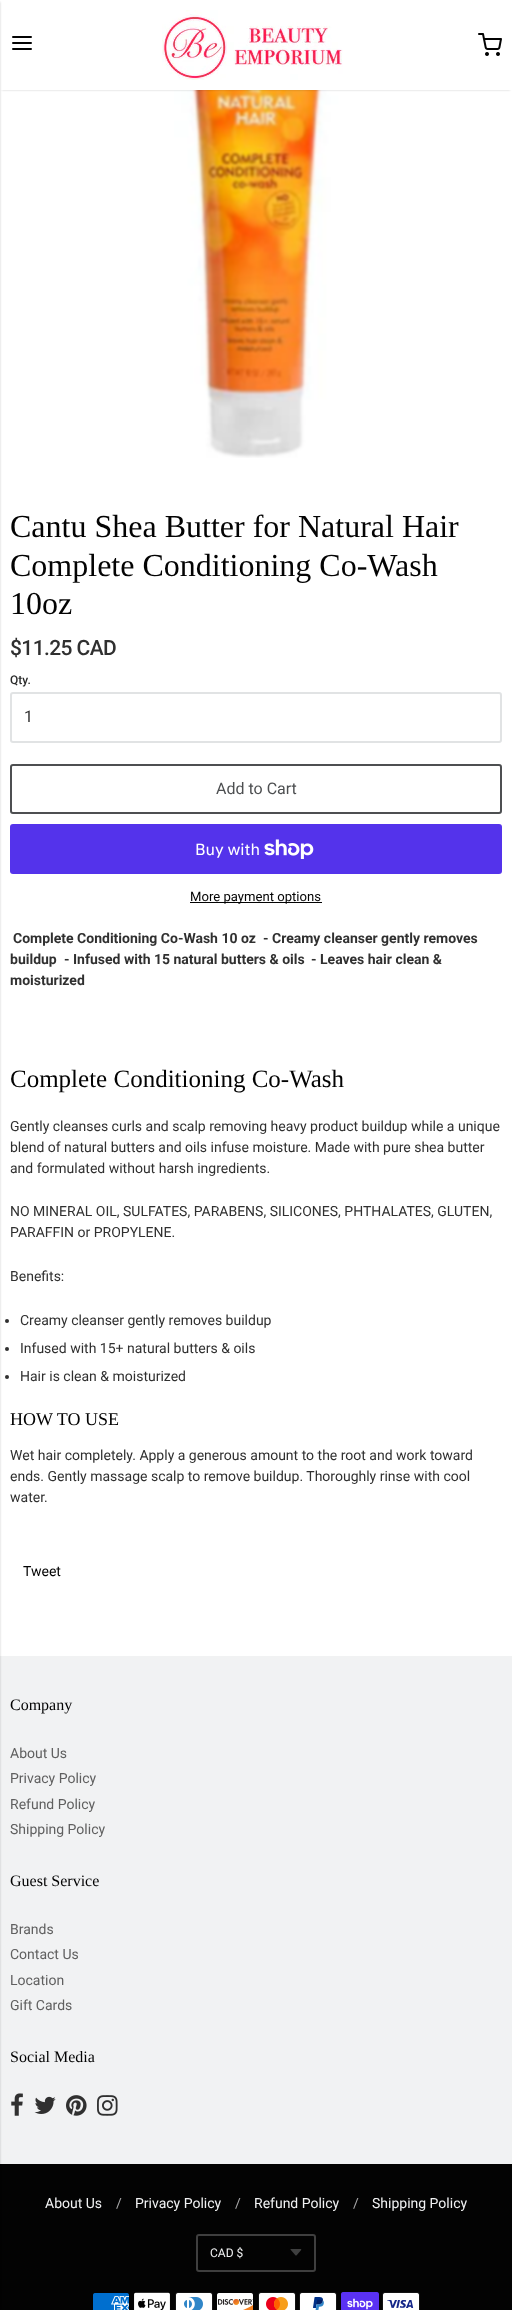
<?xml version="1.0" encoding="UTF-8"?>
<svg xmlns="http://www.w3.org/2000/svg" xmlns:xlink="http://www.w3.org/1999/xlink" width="512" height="2310">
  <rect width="100%" height="100%" fill="#ffffff" />
  <image x="174" y="90" width="165" height="368" xlink:href="image3.png" />
  <rect x="2" y="4" width="508" height="86" fill="#000000" fill-opacity="0.2" filter="blur(1px)" />
  <rect y="2" width="512" height="88" fill="#ffffff" />
  <path d="M 13 43 h 18 m -18 -6 h 18 m -18 12 h 18" fill="none" stroke="#030303" stroke-width="2" stroke-linecap="round" stroke-linejoin="round" />
  <image x="162" y="10" width="181" height="70" xlink:href="image1.png" />
  <image x="478" y="33" width="24" height="23" xlink:href="image2.png" />
  <rect y="1656" width="512" height="508" fill="#f1f2f3" />
  <rect y="2164" width="512" height="146" fill="#030303" />
  <rect x="-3" y="2" width="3" height="2306" fill="#000000" fill-opacity="0.2" filter="blur(1px)" />
  <rect x="11" y="693" width="490" height="49" rx="2" fill="none" stroke="#e1e3e4" stroke-width="2" />
  <rect x="11" y="765" width="490" height="48" rx="2" fill="none" stroke="#4d4f51" stroke-width="2" />
  <rect x="10" y="824" width="492" height="50" rx="3" fill="#5433eb" />
  <image x="264" y="839" width="50" height="20" xlink:href="image4.png" />
  <rect x="190" y="902" width="132" height="1" fill="#030303" />
  <circle cx="7" cy="1321" r="2" fill="#303030" />
  <circle cx="7" cy="1349" r="2" fill="#303030" />
  <circle cx="7" cy="1377" r="2" fill="#303030" />
  <image x="11" y="2093" width="12" height="23" xlink:href="image5.png" />
  <image x="34" y="2096" width="22" height="18" xlink:href="image6.png" />
  <image x="66" y="2095" width="21" height="21" xlink:href="image7.png" />
  <image x="97" y="2095" width="21" height="21" xlink:href="image8.png" />
  <image x="290" y="2249" width="12" height="7" xlink:href="image9.png" />
  <rect x="197" y="2235" width="118" height="36" rx="2" fill="none" stroke="#3f3f3f" stroke-width="2" />
  <image x="93" y="2293" width="36" height="17" xlink:href="image10.png" />
  <image x="134" y="2292" width="36" height="18" xlink:href="image11.png" />
  <image x="175" y="2292" width="38" height="18" xlink:href="image12.png" />
  <image x="217" y="2293" width="37" height="17" xlink:href="image13.png" />
  <image x="258" y="2292" width="38" height="18" xlink:href="image14.png" />
  <image x="299" y="2292" width="38" height="18" xlink:href="image15.png" />
  <image x="341" y="2292" width="38" height="18" xlink:href="image16.png" />
  <image x="382" y="2292" width="38" height="18" xlink:href="image17.png" />
  <text x="10" y="537" style="font-family: Liberation Serif; font-size: 32px; fill: #030303">Cantu Shea Butter for Natural Hair</text>
  <text x="10" y="576" style="font-family: Liberation Serif; font-size: 32px; fill: #030303">Complete Conditioning Co-Wash</text>
  <text x="10" y="614" style="font-family: Liberation Serif; font-size: 32px; fill: #030303">10oz</text>
  <text x="10" y="655" style="font-family: Roboto; font-size: 21px; font-weight: 500; letter-spacing: -0.6px; fill: #303030">$11.25 CAD</text>
  <text x="10" y="684" style="font-family: Roboto; font-size: 12px; font-weight: 500; fill: #2a2b2b">Qty.</text>
  <text x="24" y="722" style="font-family: Roboto; font-size: 16px; fill: #303030">1</text>
  <text x="216" y="794" style="font-family: Roboto; font-size: 16px; fill: #4d4f51">Add to Cart</text>
  <text x="195" y="855" style="font-family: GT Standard; font-size: 16px; fill: #ffffff">Buy with</text>
  <text x="190" y="901" style="font-family: Roboto; font-size: 13.1px; fill: #030303">More payment options</text>
  <text x="13" y="943" style="font-family: Roboto; font-size: 14px; font-weight: bold; fill: #303030">Complete Conditioning Co-Wash 10 oz</text>
  <text x="263" y="943" style="font-family: Roboto; font-size: 14px; font-weight: bold; fill: #303030">- Creamy cleanser gently removes</text>
  <text x="10" y="964" style="font-family: Roboto; font-size: 14px; font-weight: bold; fill: #303030">buildup</text>
  <text x="64" y="964" style="font-family: Roboto; font-size: 14px; font-weight: bold; fill: #303030">- Infused with 15 natural butters &amp; oils</text>
  <text x="311" y="964" style="font-family: Roboto; font-size: 14px; font-weight: bold; fill: #303030">- Leaves hair clean &amp;</text>
  <text x="10" y="985" style="font-family: Roboto; font-size: 14px; font-weight: bold; fill: #303030">moisturized</text>
  <text x="10" y="1087" style="font-family: Liberation Serif; font-size: 25px; fill: #030303">Complete Conditioning Co-Wash</text>
  <text x="10" y="1131" style="font-family: Roboto; font-size: 14px; fill: #303030">Gently cleanses curls and scalp removing heavy product buildup while a unique</text>
  <text x="10" y="1152" style="font-family: Roboto; font-size: 14px; fill: #303030">blend of natural butters and oils infuse moisture. Made with pure shea butter</text>
  <text x="10" y="1173" style="font-family: Roboto; font-size: 14px; fill: #303030">and formulated without harsh ingredients.</text>
  <text x="10" y="1216" style="font-family: Roboto; font-size: 14px; fill: #303030">NO MINERAL OIL, SULFATES, PARABENS, SILICONES, PHTHALATES, GLUTEN,</text>
  <text x="10" y="1237" style="font-family: Roboto; font-size: 14px; fill: #303030">PARAFFIN or PROPYLENE.</text>
  <text x="10" y="1281" style="font-family: Roboto; font-size: 14px; fill: #303030">Benefits:</text>
  <text x="20" y="1325" style="font-family: Roboto; font-size: 14px; fill: #303030">Creamy cleanser gently removes buildup</text>
  <text x="20" y="1353" style="font-family: Roboto; font-size: 14px; fill: #303030">Infused with 15+ natural butters &amp; oils</text>
  <text x="20" y="1381" style="font-family: Roboto; font-size: 14px; fill: #303030">Hair is clean &amp; moisturized</text>
  <text x="10" y="1425" style="font-family: Liberation Serif; font-size: 18px; fill: #030303">HOW TO USE</text>
  <text x="10" y="1460" style="font-family: Roboto; font-size: 14px; fill: #303030">Wet hair completely. Apply a generous amount to the root and work toward</text>
  <text x="10" y="1481" style="font-family: Roboto; font-size: 14px; fill: #303030">ends. Gently massage scalp to remove buildup. Thoroughly rinse with cool</text>
  <text x="10" y="1502" style="font-family: Roboto; font-size: 14px; fill: #303030">water.</text>
  <text x="23" y="1576" style="font-family: Roboto; font-size: 14px; fill: #030303">Tweet</text>
  <text x="10" y="1710" style="font-family: Liberation Serif; font-size: 16px; fill: #030303">Company</text>
  <text x="10" y="1758" style="font-family: Roboto; font-size: 14px; fill: #606060">About Us</text>
  <text x="10" y="1783" style="font-family: Roboto; font-size: 14px; fill: #606060">Privacy Policy</text>
  <text x="10" y="1809" style="font-family: Roboto; font-size: 14px; fill: #606060">Refund Policy</text>
  <text x="10" y="1834" style="font-family: Roboto; font-size: 14px; fill: #606060">Shipping Policy</text>
  <text x="10" y="1886" style="font-family: Liberation Serif; font-size: 16px; fill: #030303">Guest Service</text>
  <text x="10" y="1934" style="font-family: Roboto; font-size: 14px; fill: #606060">Brands</text>
  <text x="10" y="1959" style="font-family: Roboto; font-size: 14px; fill: #606060">Contact Us</text>
  <text x="10" y="1985" style="font-family: Roboto; font-size: 14px; fill: #606060">Location</text>
  <text x="10" y="2010" style="font-family: Roboto; font-size: 14px; fill: #606060">Gift Cards</text>
  <text x="10" y="2062" style="font-family: Liberation Serif; font-size: 16px; fill: #030303">Social Media</text>
  <text x="45" y="2208" style="font-family: Roboto; font-size: 14px; fill: #f1f2f3">About Us</text>
  <text x="116" y="2208" style="font-family: Roboto; font-size: 14px; fill: #aaaaab">/</text>
  <text x="135" y="2208" style="font-family: Roboto; font-size: 14px; fill: #f1f2f3">Privacy Policy</text>
  <text x="235" y="2208" style="font-family: Roboto; font-size: 14px; fill: #aaaaab">/</text>
  <text x="254" y="2208" style="font-family: Roboto; font-size: 14px; fill: #f1f2f3">Refund Policy</text>
  <text x="353" y="2208" style="font-family: Roboto; font-size: 14px; fill: #aaaaab">/</text>
  <text x="372" y="2208" style="font-family: Roboto; font-size: 14px; fill: #f1f2f3">Shipping Policy</text>
  <text x="210" y="2257" style="font-family: Roboto; font-size: 12px; fill: #f1f2f3">CAD $</text>
</svg>
